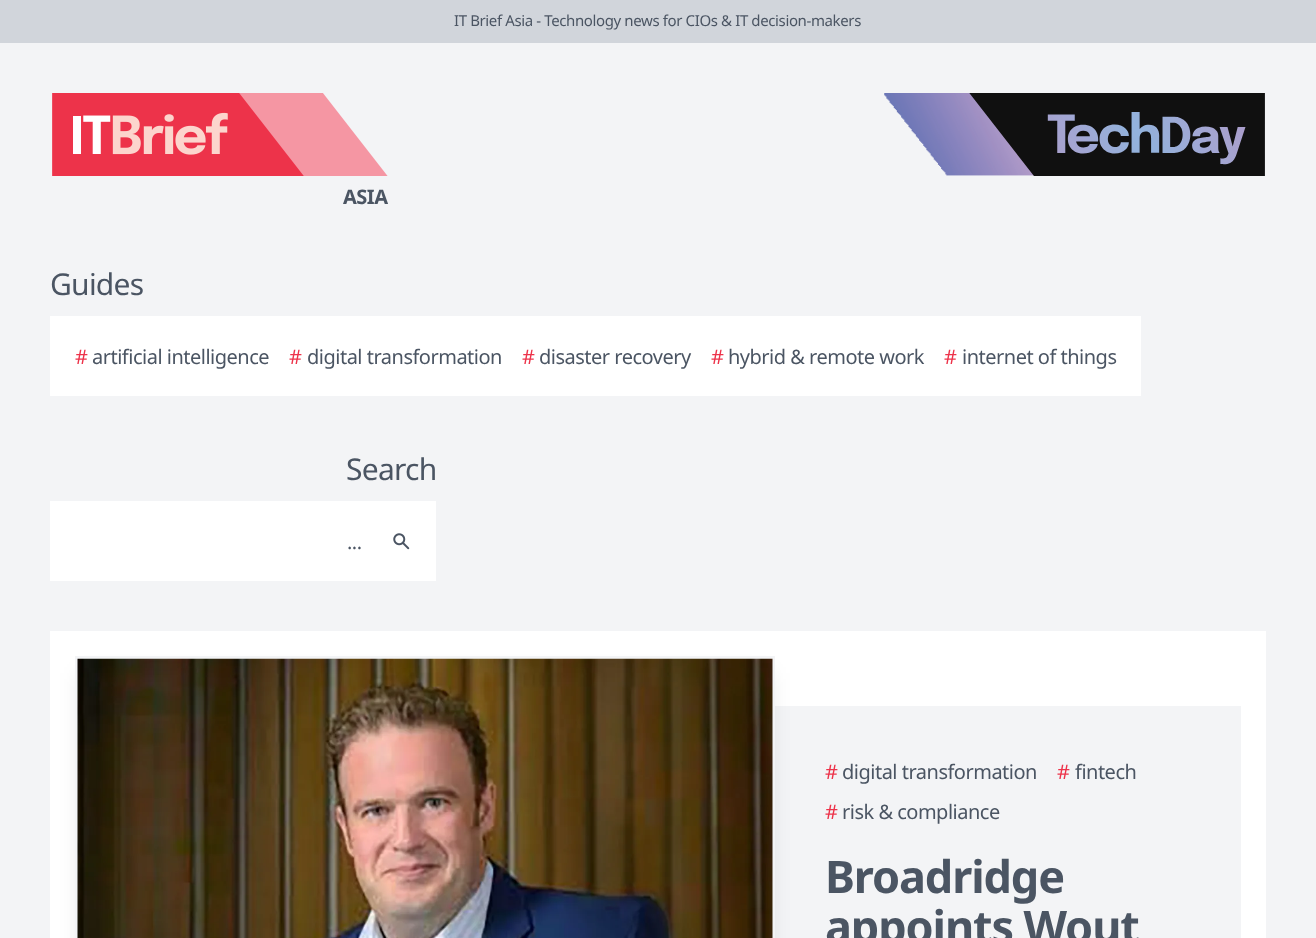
<?xml version="1.0" encoding="UTF-8"?>
<svg xmlns="http://www.w3.org/2000/svg" xmlns:xlink="http://www.w3.org/1999/xlink" width="1316" height="938">
  <rect width="100%" height="100%" fill="#f3f4f6" />
  <rect width="1316" height="43" fill="#d1d5db" />
  <image x="884" y="93" width="381" height="83" xlink:href="image1.png" />
  <image x="52" y="93" width="336" height="83" xlink:href="image2.png" />
  <rect x="50" y="316" width="1091" height="80" fill="#ffffff" />
  <rect x="50" y="501" width="386" height="80" fill="#ffffff" />
  <image x="393" y="533" width="17" height="17" xlink:href="image3.png" />
  <rect x="50" y="631" width="1216" height="307" fill="#ffffff" />
  <rect x="775" y="706" width="466" height="232" fill="#f3f4f6" />
  <rect x="79" y="673" width="692" height="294" fill="#000000" fill-opacity="0.1" filter="blur(9.5px)" />
  <rect x="76.5" y="657.5" width="697" height="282" fill="none" stroke="#f3f4f6" stroke-width="3" />
  <image x="77" y="658" width="696" height="280" xlink:href="image4.png" />
  <text x="454" y="26" style="font-family: Noto Sans; font-size: 15px; letter-spacing: -0.38px; fill: #4b5563">IT Brief Asia - Technology news for CIOs &amp; IT decision-makers</text>
  <text x="343" y="204" style="font-family: Noto Sans; font-size: 20px; font-weight: bold; letter-spacing: -0.5px; fill: #4b5563">ASIA</text>
  <text x="50" y="295" style="font-family: Noto Sans; font-size: 30px; letter-spacing: -0.75px; fill: #4b5563">Guides</text>
  <text x="75" y="364" style="font-family: Noto Sans; font-size: 20px; letter-spacing: -0.5px; fill: #ed334a">#</text>
  <text x="92" y="364" style="font-family: Noto Sans; font-size: 20px; letter-spacing: -0.5px; fill: #4b5563">artificial intelligence</text>
  <text x="289" y="364" style="font-family: Noto Sans; font-size: 20px; letter-spacing: -0.5px; fill: #ed334a">#</text>
  <text x="307" y="364" style="font-family: Noto Sans; font-size: 20px; letter-spacing: -0.5px; fill: #4b5563">digital transformation</text>
  <text x="522" y="364" style="font-family: Noto Sans; font-size: 20px; letter-spacing: -0.5px; fill: #ed334a">#</text>
  <text x="539" y="364" style="font-family: Noto Sans; font-size: 20px; letter-spacing: -0.5px; fill: #4b5563">disaster recovery</text>
  <text x="711" y="364" style="font-family: Noto Sans; font-size: 20px; letter-spacing: -0.5px; fill: #ed334a">#</text>
  <text x="728" y="364" style="font-family: Noto Sans; font-size: 20px; letter-spacing: -0.5px; fill: #4b5563">hybrid &amp; remote work</text>
  <text x="944" y="364" style="font-family: Noto Sans; font-size: 20px; letter-spacing: -0.5px; fill: #ed334a">#</text>
  <text x="962" y="364" style="font-family: Noto Sans; font-size: 20px; letter-spacing: -0.5px; fill: #4b5563">internet of things</text>
  <text x="346" y="480" style="font-family: Noto Sans; font-size: 30px; letter-spacing: -0.75px; fill: #4b5563">Search</text>
  <text x="347" y="549" style="font-family: Noto Sans; font-size: 20px; letter-spacing: -0.5px; fill: #4b5563">...</text>
  <text x="825" y="779" style="font-family: Noto Sans; font-size: 20px; letter-spacing: -0.5px; fill: #ed334a">#</text>
  <text x="842" y="779" style="font-family: Noto Sans; font-size: 20px; letter-spacing: -0.5px; fill: #4b5563">digital transformation</text>
  <text x="1057" y="779" style="font-family: Noto Sans; font-size: 20px; letter-spacing: -0.5px; fill: #ed334a">#</text>
  <text x="1075" y="779" style="font-family: Noto Sans; font-size: 20px; letter-spacing: -0.5px; fill: #4b5563">fintech</text>
  <text x="825" y="819" style="font-family: Noto Sans; font-size: 20px; letter-spacing: -0.5px; fill: #ed334a">#</text>
  <text x="842" y="819" style="font-family: Noto Sans; font-size: 20px; letter-spacing: -0.5px; fill: #4b5563">risk &amp; compliance</text>
  <text x="825" y="893" style="font-family: Noto Sans; font-size: 45px; font-weight: bold; letter-spacing: -1.1px; fill: #4b5563">Broadridge</text>
  <text x="825" y="943" style="font-family: Noto Sans; font-size: 45px; font-weight: bold; letter-spacing: -1.1px; fill: #4b5563">appoints Wout</text>
</svg>
